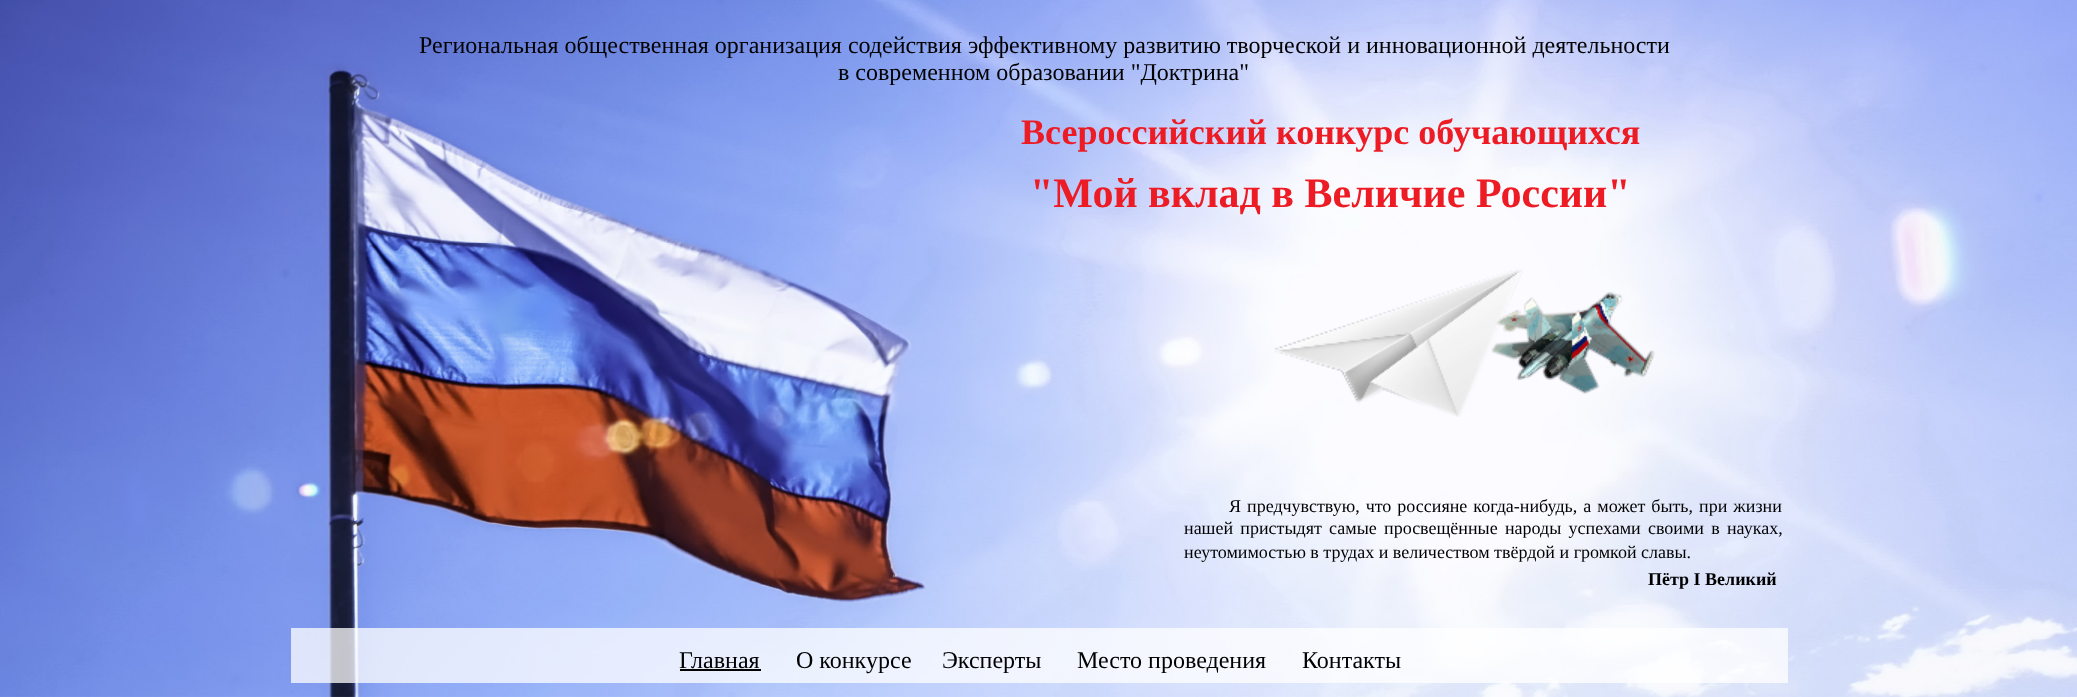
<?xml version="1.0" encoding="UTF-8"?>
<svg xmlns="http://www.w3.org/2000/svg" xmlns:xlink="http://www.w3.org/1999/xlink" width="2077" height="697">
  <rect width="100%" height="100%" fill="#ffffff" />
  <image x="0" y="0" width="2077" height="697" xlink:href="image1.png" />
  <image x="1274" y="269" width="381" height="148" xlink:href="image2.png" />
  <rect x="291" y="628" width="1497" height="55" fill="#ffffff" fill-opacity="0.75" />
  <rect x="680" y="669" width="81" height="2" fill="#000000" />
  <text x="419" y="53" style="font-family: Liberation Serif; font-size: 24px; fill: #000000">Региональная общественная организация содействия эффективному развитию творческой и инновационной деятельности</text>
  <text x="838" y="80" style="font-family: Liberation Serif; font-size: 24px; fill: #000000">в современном образовании "Доктрина"</text>
  <text x="1021" y="144" style="font-family: Liberation Serif; font-size: 36px; font-weight: bold; fill: #ed1c24">Всероссийский конкурс обучающихся</text>
  <text x="1030" y="207" style="font-family: Liberation Serif; font-size: 42px; font-weight: bold; fill: #ed1c24">"Мой вклад в Величие России"</text>
  <text x="1229" y="512" word-spacing="1.5" style="font-family: Liberation Serif; font-size: 18px; fill: #000000">Я предчувствую, что россияне когда-нибудь, а может быть, при жизни</text>
  <text x="1184" y="534" word-spacing="2.75" style="font-family: Liberation Serif; font-size: 18px; fill: #000000">нашей пристыдят самые просвещённые народы успехами своими в науках,</text>
  <text x="1184" y="558" style="font-family: Liberation Serif; font-size: 18px; fill: #000000">неутомимостью в трудах и величеством твёрдой и громкой славы.</text>
  <text x="1648" y="585" style="font-family: Liberation Serif; font-size: 18px; font-weight: bold; fill: #000000">Пётр I Великий</text>
  <text x="679" y="668" style="font-family: Liberation Serif; font-size: 24px; fill: #000000">Главная</text>
  <text x="796" y="668" style="font-family: Liberation Serif; font-size: 24px; fill: #000000">О конкурсе</text>
  <text x="942" y="668" style="font-family: Liberation Serif; font-size: 24px; fill: #000000">Эксперты</text>
  <text x="1077" y="668" style="font-family: Liberation Serif; font-size: 24px; fill: #000000">Место проведения</text>
  <text x="1302" y="668" style="font-family: Liberation Serif; font-size: 24px; fill: #000000">Контакты</text>
</svg>
